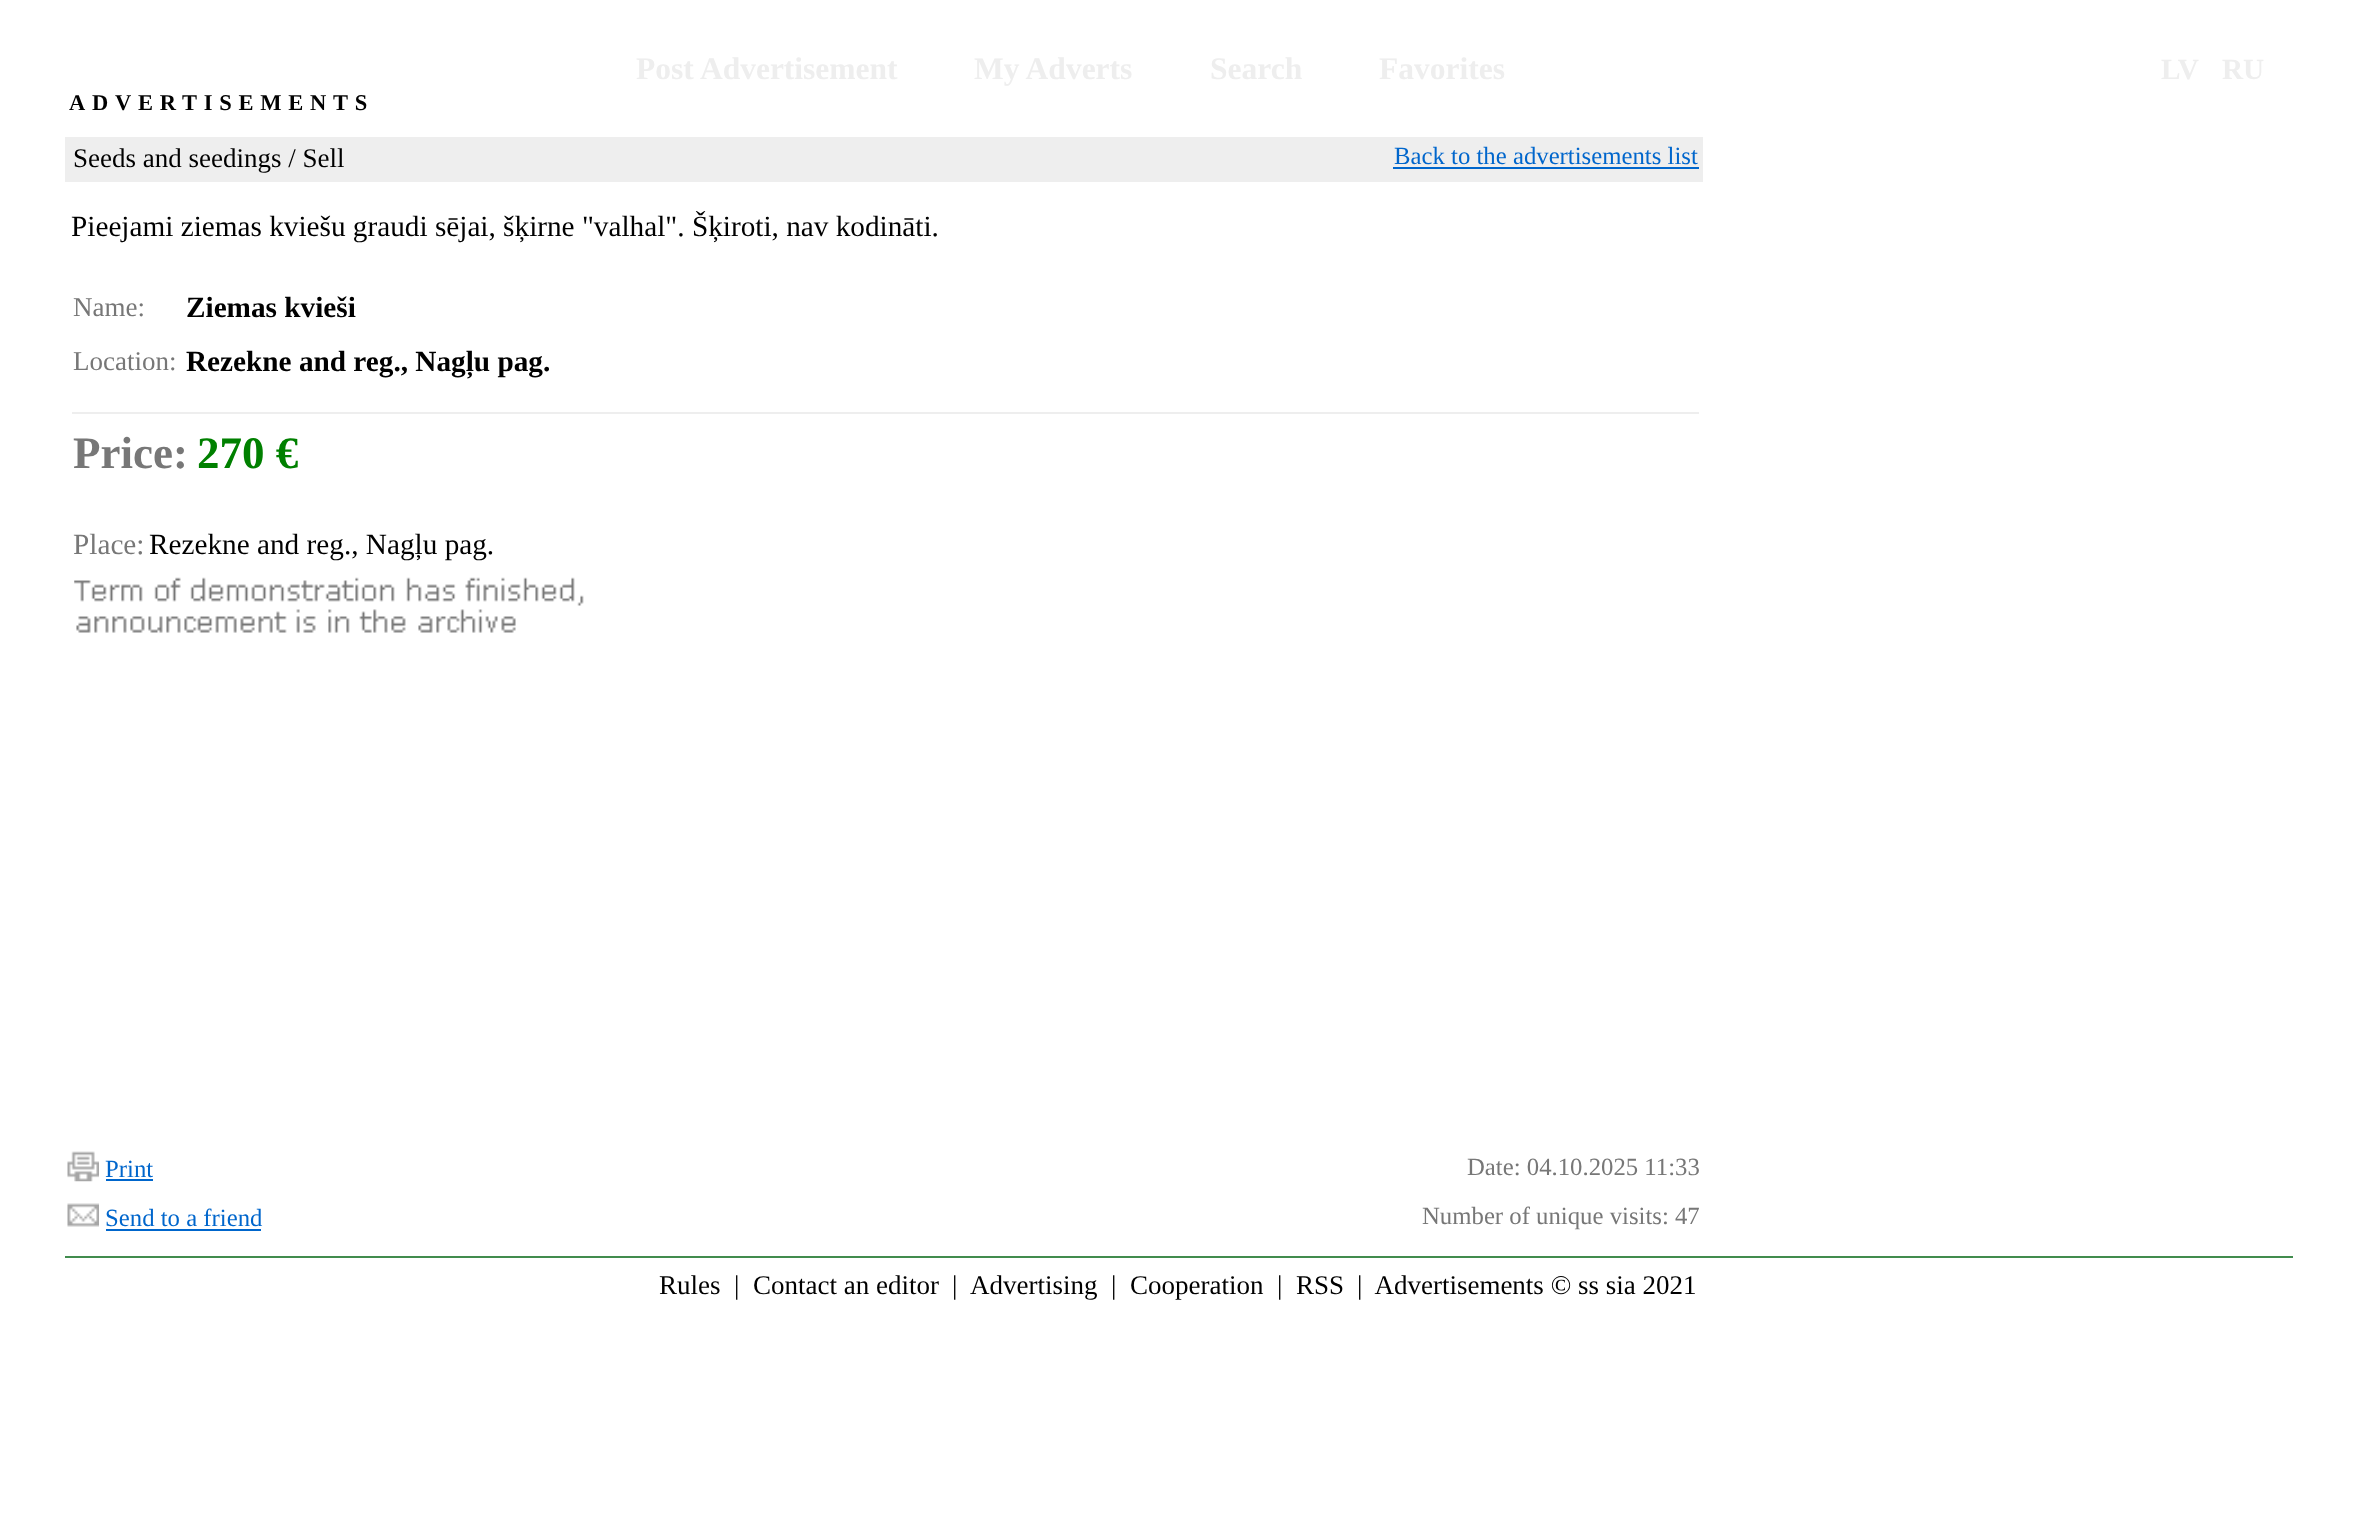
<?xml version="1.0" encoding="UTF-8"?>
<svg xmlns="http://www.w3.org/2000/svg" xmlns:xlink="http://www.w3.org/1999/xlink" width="2355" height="1518">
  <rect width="100%" height="100%" fill="#ffffff" />
  <rect x="65" y="137" width="1638" height="45" fill="#eeeeee" />
  <rect x="1393" y="167" width="306" height="2" fill="#0066cc" />
  <rect x="72" y="412" width="1627" height="2" fill="#eeeeee" />
  <image x="74" y="577" width="510" height="56" xlink:href="image1.png" />
  <image x="67" y="1151" width="32" height="31" xlink:href="image2.png" />
  <rect x="106" y="1179" width="47" height="2" fill="#0066cc" />
  <image x="67" y="1203" width="32" height="24" xlink:href="image3.png" />
  <rect x="106" y="1229" width="155" height="2" fill="#0066cc" />
  <rect x="65" y="1256" width="2228" height="2" fill="#418c4e" />
  <text x="636" y="79" style="font-family: Liberation Serif; font-size: 31.5px; font-weight: bold; fill: #eeeeee">Post Advertisement</text>
  <text x="974" y="79" style="font-family: Liberation Serif; font-size: 31.5px; font-weight: bold; fill: #eeeeee">My Adverts</text>
  <text x="1210" y="79" style="font-family: Liberation Serif; font-size: 31.5px; font-weight: bold; fill: #eeeeee">Search</text>
  <text x="1379" y="79" style="font-family: Liberation Serif; font-size: 31.5px; font-weight: bold; fill: #eeeeee">Favorites</text>
  <text x="2161" y="79" style="font-family: Liberation Serif; font-size: 29.25px; font-weight: bold; fill: #eeeeee">LV</text>
  <text x="2222" y="79" style="font-family: Liberation Serif; font-size: 29.25px; font-weight: bold; fill: #eeeeee">RU</text>
  <text x="69" y="110" style="font-family: Liberation Serif; font-size: 22.5px; font-weight: bold; letter-spacing: 6.75px; fill: #000000">ADVERTISEMENTS</text>
  <text x="73" y="167" style="font-family: Liberation Serif; font-size: 27px; fill: #000000">Seeds and seedings / Sell</text>
  <text x="1394" y="164" style="font-family: Liberation Serif; font-size: 24.75px; fill: #0066cc">Back to the advertisements list</text>
  <text x="71" y="236" style="font-family: Liberation Serif; font-size: 29.25px; fill: #000000">Pieejami ziemas kviešu graudi sējai, šķirne "valhal". Šķiroti, nav kodināti.</text>
  <text x="73" y="316" style="font-family: Liberation Serif; font-size: 27px; fill: #777777">Name:</text>
  <text x="186" y="317" style="font-family: Liberation Serif; font-size: 29.25px; font-weight: bold; fill: #000000">Ziemas kvieši</text>
  <text x="73" y="370" style="font-family: Liberation Serif; font-size: 27px; fill: #777777">Location:</text>
  <text x="186" y="371" style="font-family: Liberation Serif; font-size: 29.25px; font-weight: bold; fill: #000000">Rezekne and reg., Nagļu pag.</text>
  <text x="73" y="468" style="font-family: Liberation Serif; font-size: 45px; font-weight: bold; fill: #777777">Price:</text>
  <text x="197" y="468" style="font-family: Liberation Serif; font-size: 45px; font-weight: bold; fill: #008000">270 €</text>
  <text x="73" y="554" style="font-family: Liberation Serif; font-size: 29.25px; fill: #777777">Place:</text>
  <text x="149" y="554" style="font-family: Liberation Serif; font-size: 29.25px; fill: #000000">Rezekne and reg., Nagļu pag.</text>
  <text x="105" y="1177" style="font-family: Liberation Serif; font-size: 24.75px; fill: #0066cc">Print</text>
  <text x="1467" y="1175" style="font-family: Liberation Serif; font-size: 24.75px; fill: #777777">Date: 04.10.2025 11:33</text>
  <text x="105" y="1226" style="font-family: Liberation Serif; font-size: 24.75px; fill: #0066cc">Send to a friend</text>
  <text x="1422" y="1224" style="font-family: Liberation Serif; font-size: 24.75px; fill: #777777">Number of unique visits: 47</text>
  <text x="659" y="1294" style="font-family: Liberation Serif; font-size: 27px; fill: #000000">Rules</text>
  <text x="734" y="1294" style="font-family: Liberation Serif; font-size: 27px; fill: #000000">|</text>
  <text x="753" y="1294" style="font-family: Liberation Serif; font-size: 27px; fill: #000000">Contact an editor</text>
  <text x="952" y="1294" style="font-family: Liberation Serif; font-size: 27px; fill: #000000">|</text>
  <text x="970" y="1294" style="font-family: Liberation Serif; font-size: 27px; fill: #000000">Advertising</text>
  <text x="1111" y="1294" style="font-family: Liberation Serif; font-size: 27px; fill: #000000">|</text>
  <text x="1130" y="1294" style="font-family: Liberation Serif; font-size: 27px; fill: #000000">Cooperation</text>
  <text x="1277" y="1294" style="font-family: Liberation Serif; font-size: 27px; fill: #000000">|</text>
  <text x="1296" y="1294" style="font-family: Liberation Serif; font-size: 27px; fill: #000000">RSS</text>
  <text x="1357" y="1294" style="font-family: Liberation Serif; font-size: 27px; fill: #000000" xml:space="preserve">|  Advertisements © ss sia 2021</text>
</svg>
